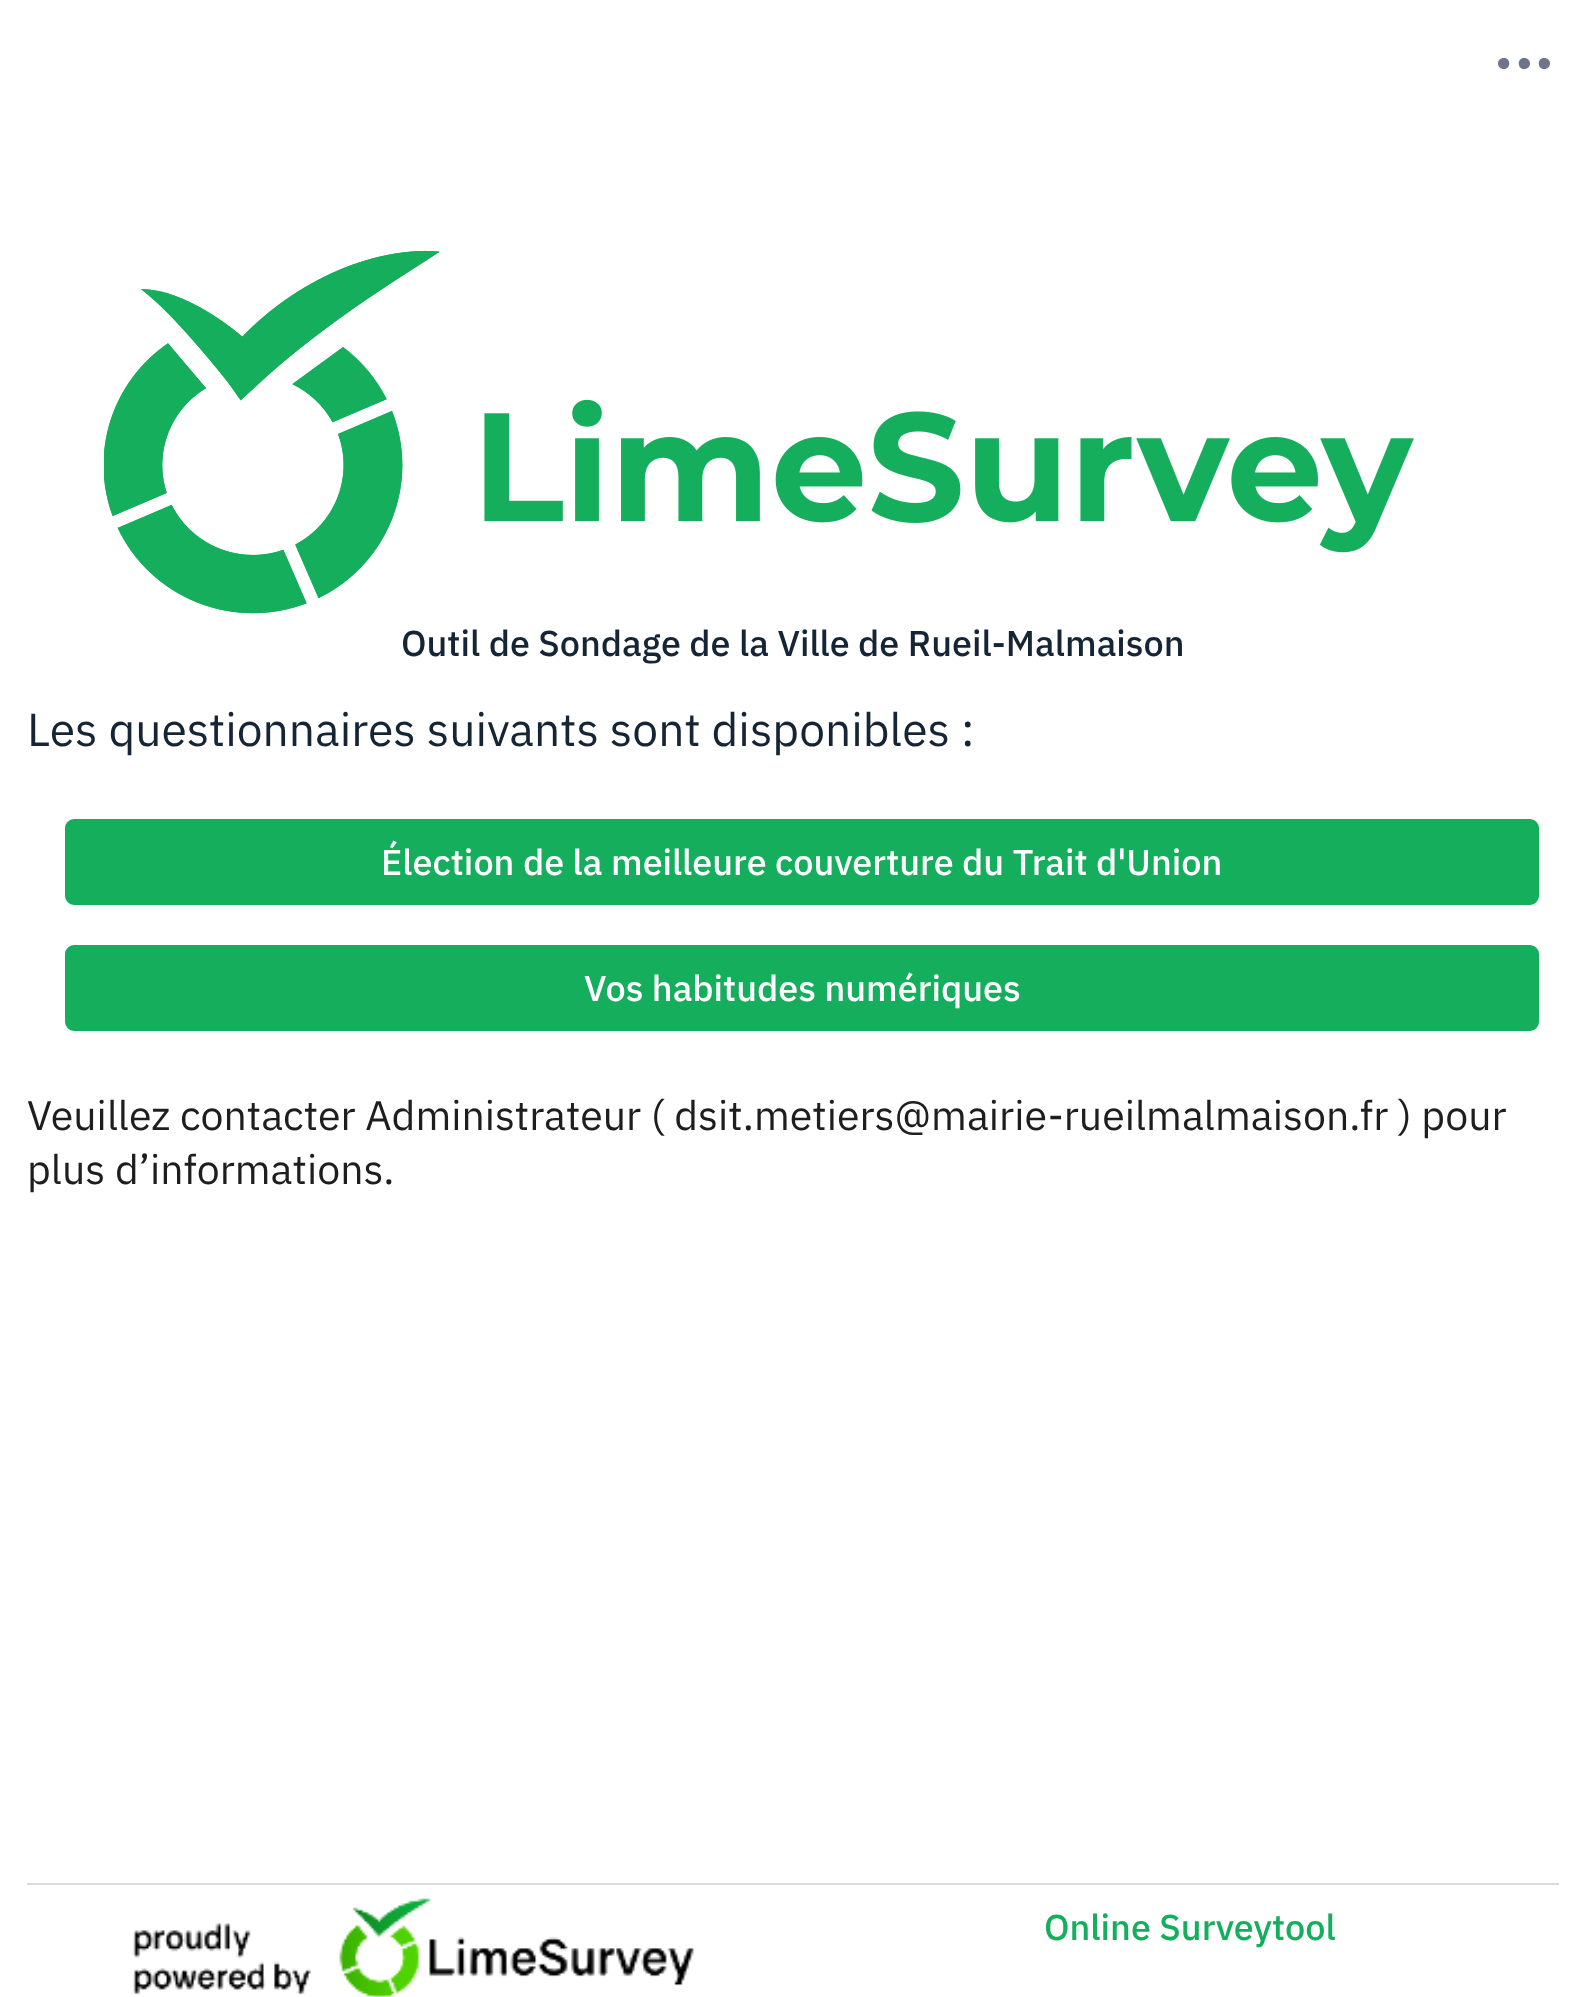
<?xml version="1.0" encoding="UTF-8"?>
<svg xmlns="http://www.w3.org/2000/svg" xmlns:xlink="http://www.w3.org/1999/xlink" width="1585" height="1997">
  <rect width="100%" height="100%" fill="#ffffff" />
  <path d="M 1504 58 c -8 0 -8 11 0 11 c 7 0 7 -11 0 -11 z m 40 0 c -7 0 -7 11 0 11 c 8 0 8 -11 0 -11 z m -20 0 c -7 0 -7 11 0 11 c 8 0 8 -11 0 -11 z" fill="#6e748c" />
  <image x="104" y="250" width="1310" height="364" xlink:href="image1.png" />
  <rect x="66" y="820" width="1472" height="84" rx="8" fill="#14ae5c" stroke="#14ae5c" stroke-width="2" />
  <rect x="66" y="946" width="1472" height="84" rx="8" fill="#14ae5c" stroke="#14ae5c" stroke-width="2" />
  <rect x="27" y="1883" width="1532" height="2" fill="#dadada" />
  <image x="132" y="1898" width="562" height="99" xlink:href="image2.png" />
  <text x="401" y="656" style="font-family: IBM Plex Sans; font-size: 35.9px; font-weight: 500; fill: #152536">Outil de Sondage de la Ville de Rueil-Malmaison</text>
  <text x="27" y="746" style="font-family: IBM Plex Sans; font-size: 46.2px; fill: #152536">Les questionnaires suivants sont disponibles :</text>
  <text x="381" y="875" style="font-family: IBM Plex Sans; font-size: 35.9px; font-weight: 500; fill: #ffffff">Élection de la meilleure couverture du Trait d'Union</text>
  <text x="584" y="1001" style="font-family: IBM Plex Sans; font-size: 35.9px; font-weight: 500; fill: #ffffff">Vos habitudes numériques</text>
  <text x="27" y="1130" style="font-family: IBM Plex Sans; font-size: 41.05px; fill: #1e1e1e">Veuillez contacter Administrateur ( dsit.metiers@mairie-rueilmalmaison.fr ) pour</text>
  <text x="27" y="1184" style="font-family: IBM Plex Sans; font-size: 41.05px; fill: #1e1e1e">plus d’informations.</text>
  <text x="1044" y="1940" style="font-family: IBM Plex Sans; font-size: 35.9px; font-weight: 500; fill: #14ae5c">Online Surveytool</text>
</svg>
